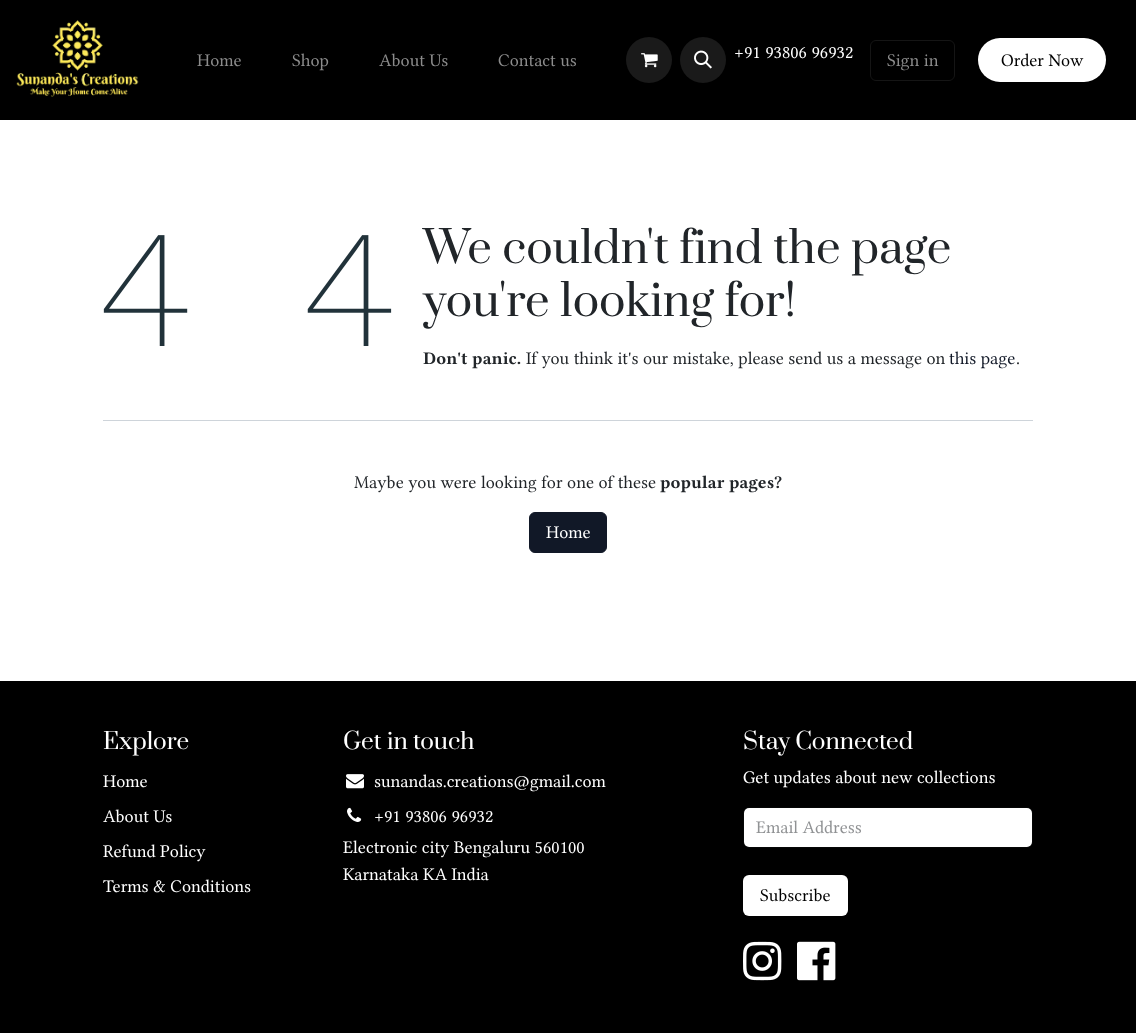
<?xml version="1.0" encoding="UTF-8"?>
<svg xmlns="http://www.w3.org/2000/svg" xmlns:xlink="http://www.w3.org/1999/xlink" width="1136" height="1033">
  <rect width="100%" height="100%" fill="#ffffff" />
  <rect width="1136" height="120" fill="#000000" />
  <image x="16" y="20" width="123" height="77" xlink:href="image1.png" />
  <circle cx="649" cy="60" r="23" fill="#1a1a1a" />
  <image x="641" y="53" width="17" height="15" xlink:href="image2.png" />
  <circle cx="703" cy="60" r="23" fill="#1a1a1a" />
  <image x="694" y="50" width="18" height="19" xlink:href="image3.png" />
  <rect x="870.5" y="40.5" width="84" height="40" rx="5.5" fill="none" stroke="#151515" />
  <rect x="978" y="38" width="128" height="44" rx="22" fill="#ffffff" />
  <image x="103" y="235" width="289" height="111" xlink:href="image4.png" />
  <rect x="103" y="420" width="930" height="1" fill="#ced4da" />
  <rect x="529.5" y="512.5" width="77" height="40" rx="5.5" fill="#111827" stroke="#111827" />
  <rect y="681" width="1136" height="352" fill="#000000" />
  <image x="346" y="774" width="18" height="15" xlink:href="image5.png" />
  <image x="347" y="807" width="15" height="15" xlink:href="image6.png" />
  <rect x="744" y="808" width="288" height="39" rx="5" fill="#ffffff" />
  <rect x="743.5" y="807.5" width="289" height="40" rx="5.5" fill="none" stroke="#212529" stroke-opacity="0.15" />
  <rect x="743" y="875" width="105" height="41" rx="6" fill="#ffffff" />
  <image x="743" y="941" width="39" height="40" xlink:href="image7.png" />
  <image x="797" y="941" width="39" height="40" xlink:href="image8.png" />
  <text x="197" y="66" style="font-family: Libertinus Serif; font-size: 18px; fill: #8c8c8c">Home</text>
  <text x="292" y="66" style="font-family: Libertinus Serif; font-size: 18px; fill: #8c8c8c">Shop</text>
  <text x="379" y="66" style="font-family: Libertinus Serif; font-size: 18px; fill: #8c8c8c">About Us</text>
  <text x="498" y="66" style="font-family: Libertinus Serif; font-size: 18px; fill: #8c8c8c">Contact us</text>
  <text x="734" y="58" style="font-family: Libertinus Serif; font-size: 18px; fill: #ffffff">+91 93806 96932</text>
  <text x="887" y="66" style="font-family: Libertinus Serif; font-size: 18px; fill: #8c8c8c">Sign in</text>
  <text x="1001" y="66" style="font-family: Libertinus Serif; font-size: 18px; fill: #000000">Order Now</text>
  <text x="423" y="263" style="font-family: Prata; font-size: 43.75px; fill: #212529">We couldn't find the page</text>
  <text x="423" y="316" style="font-family: Prata; font-size: 43.75px; fill: #212529">you're looking for!</text>
  <text x="423" y="364" style="font-family: Libertinus Serif; font-size: 18px; font-weight: bold; fill: #212529">Don't panic.</text>
  <text x="526" y="364" style="font-family: Libertinus Serif; font-size: 18px; fill: #212529">If you think it's our mistake, please send us a message on</text>
  <text x="949" y="364" style="font-family: Libertinus Serif; font-size: 18px; fill: #111827">this page</text>
  <text x="1016" y="364" style="font-family: Libertinus Serif; font-size: 18px; fill: #212529">.</text>
  <text x="354" y="488" style="font-family: Libertinus Serif; font-size: 18px; fill: #212529">Maybe you were looking for one of these</text>
  <text x="660" y="488" style="font-family: Libertinus Serif; font-size: 18px; font-weight: bold; fill: #212529">popular pages?</text>
  <text x="546" y="538" style="font-family: Libertinus Serif; font-size: 18px; fill: #ffffff">Home</text>
  <text x="103" y="749" style="font-family: Prata; font-size: 22.5px; fill: #ffffff">Explore</text>
  <text x="103" y="787" style="font-family: Libertinus Serif; font-size: 18px; fill: #ffffff">Home</text>
  <text x="103" y="822" style="font-family: Libertinus Serif; font-size: 18px; fill: #ffffff">About Us</text>
  <text x="103" y="857" style="font-family: Libertinus Serif; font-size: 18px; fill: #ffffff">Refund Policy</text>
  <text x="103" y="892" style="font-family: Libertinus Serif; font-size: 18px; fill: #ffffff">Terms &amp; Conditions</text>
  <text x="343" y="749" style="font-family: Prata; font-size: 22.5px; fill: #ffffff">Get in touch</text>
  <text x="374" y="787" style="font-family: Libertinus Serif; font-size: 18px; fill: #ffffff">sunandas.creations@gmail.com</text>
  <text x="374" y="822" style="font-family: Libertinus Serif; font-size: 18px; fill: #ffffff">+91 93806 96932</text>
  <text x="343" y="853" style="font-family: Libertinus Serif; font-size: 18px; fill: #ffffff">Electronic city Bengaluru 560100</text>
  <text x="343" y="880" style="font-family: Libertinus Serif; font-size: 18px; fill: #ffffff">Karnataka KA India</text>
  <text x="743" y="749" style="font-family: Prata; font-size: 22.5px; fill: #ffffff">Stay Connected</text>
  <text x="743" y="783" style="font-family: Libertinus Serif; font-size: 18px; fill: #ffffff">Get updates about new collections</text>
  <text x="756" y="833" style="font-family: Libertinus Serif; font-size: 18px; fill: #909294">Email Address</text>
  <text x="760" y="901" style="font-family: Libertinus Serif; font-size: 18px; fill: #000000">Subscribe</text>
</svg>
